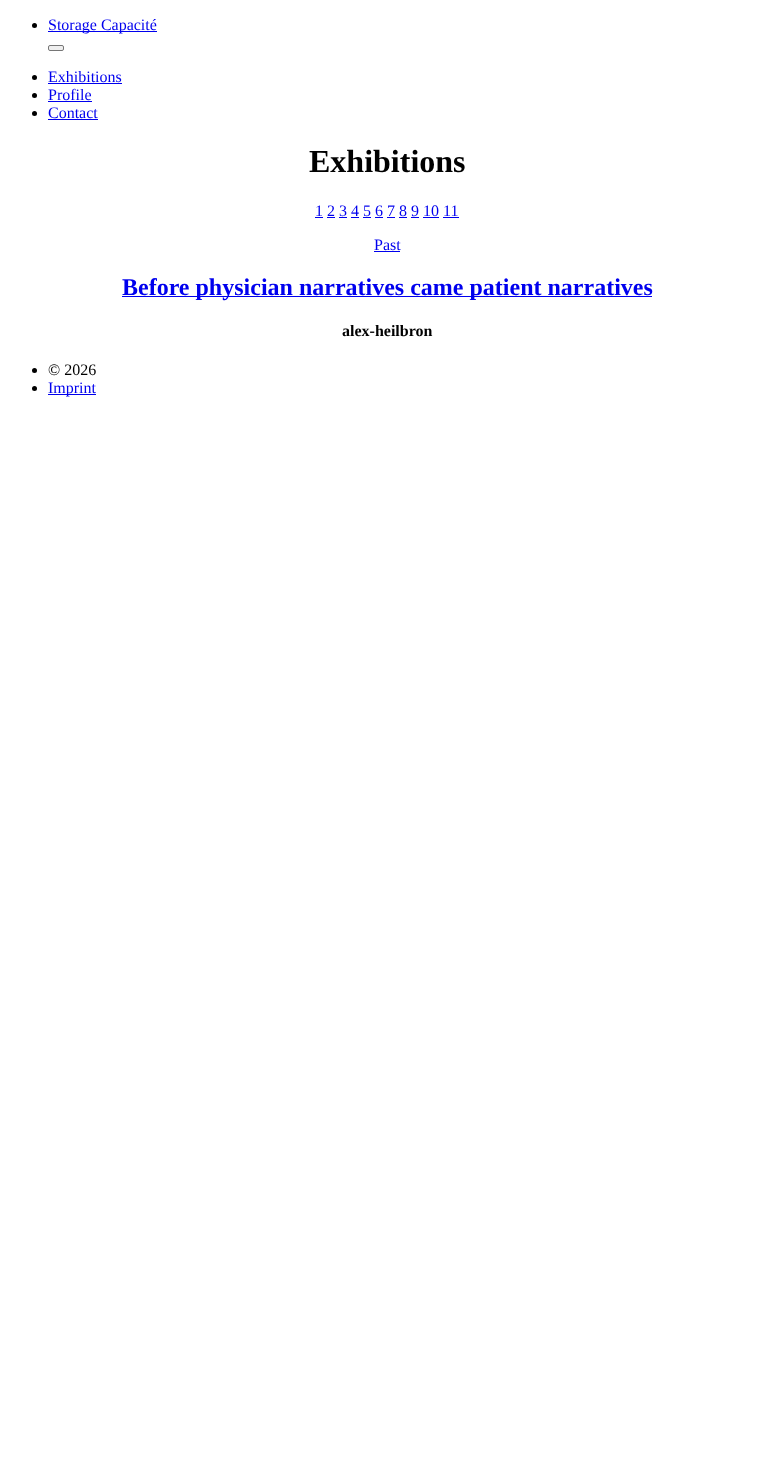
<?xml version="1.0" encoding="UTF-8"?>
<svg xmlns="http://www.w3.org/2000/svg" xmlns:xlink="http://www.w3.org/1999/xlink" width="774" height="1458">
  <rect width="100%" height="100%" fill="#ffffff" />
  <circle cx="34.5" cy="25.5" r="2.5" fill="#000000" />
  <rect x="48" y="31" width="109" height="1" fill="#0000ee" />
  <rect x="48.5" y="45.5" width="15" height="5" rx="1.5" fill="#efefef" stroke="#767676" />
  <circle cx="34.5" cy="77.5" r="2.5" fill="#000000" />
  <rect x="48" y="83" width="74" height="1" fill="#0000ee" />
  <circle cx="34.5" cy="95.5" r="2.5" fill="#000000" />
  <rect x="48" y="101" width="44" height="1" fill="#0000ee" />
  <circle cx="34.5" cy="113.5" r="2.5" fill="#000000" />
  <rect x="48" y="119" width="50" height="1" fill="#0000ee" />
  <rect x="315" y="217" width="8" height="1" fill="#0000ee" />
  <rect x="327" y="217" width="8" height="1" fill="#0000ee" />
  <rect x="339" y="217" width="8" height="1" fill="#0000ee" />
  <rect x="351" y="217" width="8" height="1" fill="#0000ee" />
  <rect x="363" y="217" width="8" height="1" fill="#0000ee" />
  <rect x="375" y="217" width="8" height="1" fill="#0000ee" />
  <rect x="387" y="217" width="8" height="1" fill="#0000ee" />
  <rect x="399" y="217" width="8" height="1" fill="#0000ee" />
  <rect x="411" y="217" width="8" height="1" fill="#0000ee" />
  <rect x="423" y="217" width="16" height="1" fill="#0000ee" />
  <rect x="443" y="217" width="16" height="1" fill="#0000ee" />
  <rect x="374" y="251" width="26" height="1" fill="#0000ee" />
  <rect x="122" y="296" width="530" height="1" fill="#0000ee" />
  <circle cx="34.5" cy="370.5" r="2.5" fill="#000000" />
  <circle cx="34.5" cy="388.5" r="2.5" fill="#000000" />
  <rect x="48" y="394" width="48" height="1" fill="#0000ee" />
  <text x="48" y="30" style="font-family: Liberation Serif; font-size: 16px; fill: #0000ee">Storage Capacité</text>
  <text x="48" y="82" style="font-family: Liberation Serif; font-size: 16px; fill: #0000ee">Exhibitions</text>
  <text x="48" y="100" style="font-family: Liberation Serif; font-size: 16px; fill: #0000ee">Profile</text>
  <text x="48" y="118" style="font-family: Liberation Serif; font-size: 16px; fill: #0000ee">Contact</text>
  <text x="309" y="172" style="font-family: Liberation Serif; font-size: 32px; font-weight: bold; fill: #000000">Exhibitions</text>
  <text x="315" y="216" style="font-family: Liberation Serif; font-size: 16px; fill: #0000ee">1 2 3 4 5 6 7 8 9 10 11</text>
  <text x="374" y="250" style="font-family: Liberation Serif; font-size: 16px; fill: #0000ee">Past</text>
  <text x="122" y="295" style="font-family: Liberation Serif; font-size: 24px; font-weight: bold; fill: #0000ee">Before physician narratives came patient narratives</text>
  <text x="342" y="336" style="font-family: Liberation Serif; font-size: 16px; font-weight: bold; fill: #000000">alex-heilbron</text>
  <text x="48" y="375" style="font-family: Liberation Serif; font-size: 16px; fill: #000000">© 2026</text>
  <text x="48" y="393" style="font-family: Liberation Serif; font-size: 16px; fill: #0000ee">Imprint</text>
</svg>
